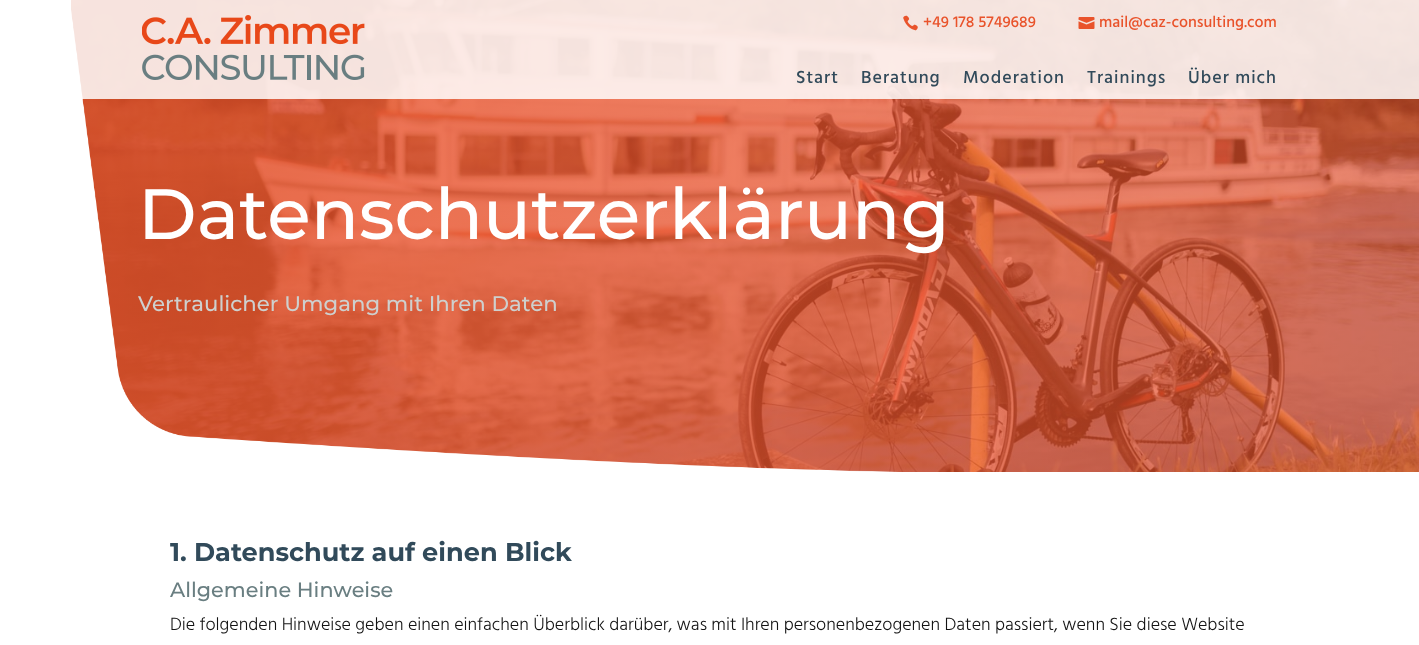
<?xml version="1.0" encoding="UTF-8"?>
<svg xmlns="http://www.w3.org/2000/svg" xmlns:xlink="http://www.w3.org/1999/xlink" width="1419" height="645">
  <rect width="100%" height="100%" fill="#ffffff" />
  <image x="71" y="0" width="1348" height="472" xlink:href="image4.png" />
  <image x="71" y="10" width="828" height="462" xlink:href="image5.png" />
  <rect x="71" width="1348" height="99" fill="#ffffff" fill-opacity="0.85" />
  <image x="142" y="15" width="223" height="65" xlink:href="image1.png" />
  <image x="903" y="15" width="15" height="16" xlink:href="image2.png" />
  <image x="1078" y="17" width="17" height="12" xlink:href="image3.png" />
  <text x="923" y="27" style="font-family: Hind; font-size: 16px; font-weight: 500; fill: #e9532b">+49 178 5749689</text>
  <text x="1099" y="27" style="font-family: Hind; font-size: 16px; font-weight: 500; fill: #e9532b">mail@caz-consulting.com</text>
  <text x="796" y="83" style="font-family: Hind; font-size: 18px; font-weight: 500; letter-spacing: 1px; fill: #314a5a">Start</text>
  <text x="861" y="83" style="font-family: Hind; font-size: 18px; font-weight: 500; letter-spacing: 1px; fill: #314a5a">Beratung</text>
  <text x="963" y="83" style="font-family: Hind; font-size: 18px; font-weight: 500; letter-spacing: 1px; fill: #314a5a">Moderation</text>
  <text x="1087" y="83" style="font-family: Hind; font-size: 18px; font-weight: 500; letter-spacing: 1px; fill: #314a5a">Trainings</text>
  <text x="1188" y="83" style="font-family: Hind; font-size: 18px; font-weight: 500; letter-spacing: 1px; fill: #314a5a">Über mich</text>
  <text x="138" y="239" style="font-family: Montserrat; font-size: 71px; font-weight: 500; fill: #ffffff">Datenschutzerklärung</text>
  <text x="138" y="311" style="font-family: Montserrat; font-size: 21.25px; font-weight: 500; fill: #ced0ce">Vertraulicher Umgang mit Ihren Daten</text>
  <text x="170" y="561" style="font-family: Montserrat; font-size: 25.6px; font-weight: bold; fill: #314a5a">1. Datenschutz auf einen Blick</text>
  <text x="170" y="597" style="font-family: Montserrat; font-size: 20.75px; font-weight: 500; fill: #697e81">Allgemeine Hinweise</text>
  <text x="170" y="630" style="font-family: Hind; font-size: 18.08px; font-weight: 300; fill: #131313">Die folgenden Hinweise geben einen einfachen Überblick darüber, was mit Ihren personenbezogenen Daten passiert, wenn Sie diese Website</text>
</svg>
